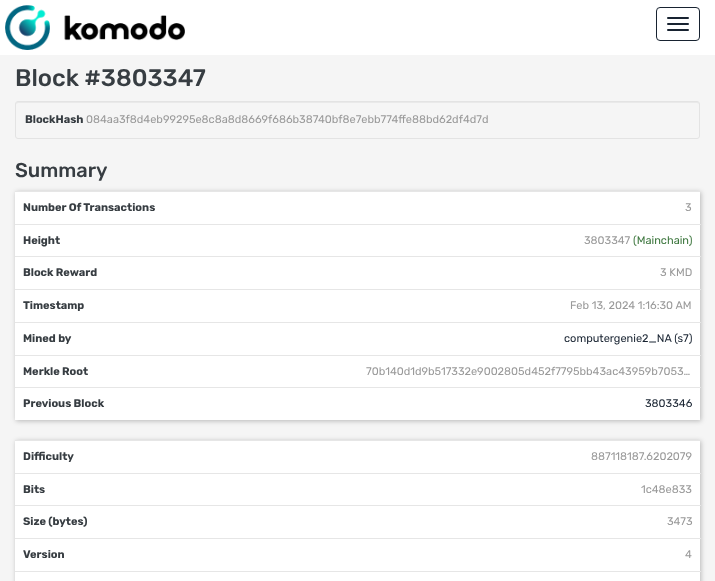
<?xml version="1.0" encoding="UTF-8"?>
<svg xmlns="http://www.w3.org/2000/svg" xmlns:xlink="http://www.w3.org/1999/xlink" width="715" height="581">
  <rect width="100%" height="100%" fill="#f5f5f5" />
  <rect width="715" height="55" fill="#ffffff" />
  <image x="5" y="5" width="180" height="45" xlink:href="image1.png" />
  <rect x="656.5" y="7.5" width="43" height="33" rx="3.5" fill="none" stroke="#182331" />
  <rect x="667" y="17" width="22" height="2" rx="1" fill="#182331" />
  <rect x="667" y="23" width="22" height="2" rx="1" fill="#182331" />
  <rect x="667" y="29" width="22" height="2" rx="1" fill="#182331" />
  <path d="M 18 103 h 679 c 1 0 2 1 2 2 c 0 -1 0 -3 -2 -3 h -679 c -2 0 -2 2 -2 3 c 0 -1 1 -2 2 -2 z" fill="#e9e9e9" />
  <rect x="15.5" y="101.5" width="684" height="37" rx="2.5" fill="none" stroke="#e3e3e3" />
  <rect x="16" y="192" width="685" height="229" fill="#000000" fill-opacity="0.25" filter="blur(2.5px)" />
  <rect x="15" y="192" width="685" height="228" fill="#ffffff" />
  <rect x="15" y="191" width="686" height="1" fill="#e6e6e6" />
  <rect x="15" y="224" width="686" height="1" fill="#e6e6e6" />
  <rect x="15" y="256" width="686" height="1" fill="#e6e6e6" />
  <rect x="15" y="289" width="686" height="1" fill="#e6e6e6" />
  <rect x="15" y="322" width="686" height="1" fill="#e6e6e6" />
  <rect x="15" y="355" width="686" height="1" fill="#e6e6e6" />
  <rect x="15" y="387" width="686" height="1" fill="#e6e6e6" />
  <rect x="16" y="441" width="685" height="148" fill="#000000" fill-opacity="0.25" filter="blur(2.5px)" />
  <rect x="15" y="441" width="685" height="140" fill="#ffffff" />
  <rect x="15" y="440" width="686" height="1" fill="#e6e6e6" />
  <rect x="15" y="473" width="686" height="1" fill="#e6e6e6" />
  <rect x="15" y="505" width="686" height="1" fill="#e6e6e6" />
  <rect x="15" y="538" width="686" height="1" fill="#e6e6e6" />
  <rect x="15" y="571" width="686" height="1" fill="#e6e6e6" />
  <text x="15" y="86" style="font-family: Rubik; font-size: 24px; font-weight: 500; fill: #373d42">Block #3803347</text>
  <text x="25" y="123" style="font-family: Rubik; font-size: 11px; font-weight: bold; fill: #373d42">BlockHash</text>
  <text x="86" y="123" style="font-family: Rubik; font-size: 11px; fill: #999999">084aa3f8d4eb99295e8c8a8d8669f686b38740bf8e7ebb774ffe88bd62df4d7d</text>
  <text x="15" y="177" style="font-family: Rubik; font-size: 20px; font-weight: 500; fill: #373d42">Summary</text>
  <text x="23" y="211" style="font-family: Rubik; font-size: 11px; font-weight: bold; fill: #373d42">Number Of Transactions</text>
  <text x="685" y="211" style="font-family: Rubik; font-size: 11px; fill: #999999">3</text>
  <text x="23" y="244" style="font-family: Rubik; font-size: 11px; font-weight: bold; fill: #373d42">Height</text>
  <text x="584" y="244" style="font-family: Rubik; font-size: 11px; fill: #999999">3803347</text>
  <text x="633" y="244" style="font-family: Rubik; font-size: 11px; fill: #3c763d">(Mainchain)</text>
  <text x="23" y="276" style="font-family: Rubik; font-size: 11px; font-weight: bold; fill: #373d42">Block Reward</text>
  <text x="660" y="276" style="font-family: Rubik; font-size: 11px; fill: #999999">3 KMD</text>
  <text x="23" y="309" style="font-family: Rubik; font-size: 11px; font-weight: bold; fill: #373d42">Timestamp</text>
  <text x="570" y="309" style="font-family: Rubik; font-size: 11px; fill: #999999">Feb 13, 2024 1:16:30 AM</text>
  <text x="23" y="342" style="font-family: Rubik; font-size: 11px; font-weight: bold; fill: #373d42">Mined by</text>
  <text x="564" y="342" style="font-family: Rubik; font-size: 11px; fill: #182331">computergenie2_NA (s7)</text>
  <text x="23" y="375" style="font-family: Rubik; font-size: 11px; font-weight: bold; fill: #373d42">Merkle Root</text>
  <text x="366" y="375" style="font-family: Rubik; font-size: 11px; fill: #999999">70b140d1d9b517332e9002805d452f7795bb43ac43959b7053…</text>
  <text x="23" y="407" style="font-family: Rubik; font-size: 11px; font-weight: bold; fill: #373d42">Previous Block</text>
  <text x="645" y="407" style="font-family: Rubik; font-size: 11px; fill: #182331">3803346</text>
  <text x="23" y="460" style="font-family: Rubik; font-size: 11px; font-weight: bold; fill: #373d42">Difficulty</text>
  <text x="591" y="460" style="font-family: Rubik; font-size: 11px; fill: #999999">887118187.6202079</text>
  <text x="23" y="493" style="font-family: Rubik; font-size: 11px; font-weight: bold; fill: #373d42">Bits</text>
  <text x="641" y="493" style="font-family: Rubik; font-size: 11px; fill: #999999">1c48e833</text>
  <text x="23" y="525" style="font-family: Rubik; font-size: 11px; font-weight: bold; fill: #373d42">Size (bytes)</text>
  <text x="667" y="525" style="font-family: Rubik; font-size: 11px; fill: #999999">3473</text>
  <text x="23" y="558" style="font-family: Rubik; font-size: 11px; font-weight: bold; fill: #373d42">Version</text>
  <text x="685" y="558" style="font-family: Rubik; font-size: 11px; fill: #999999">4</text>
</svg>
